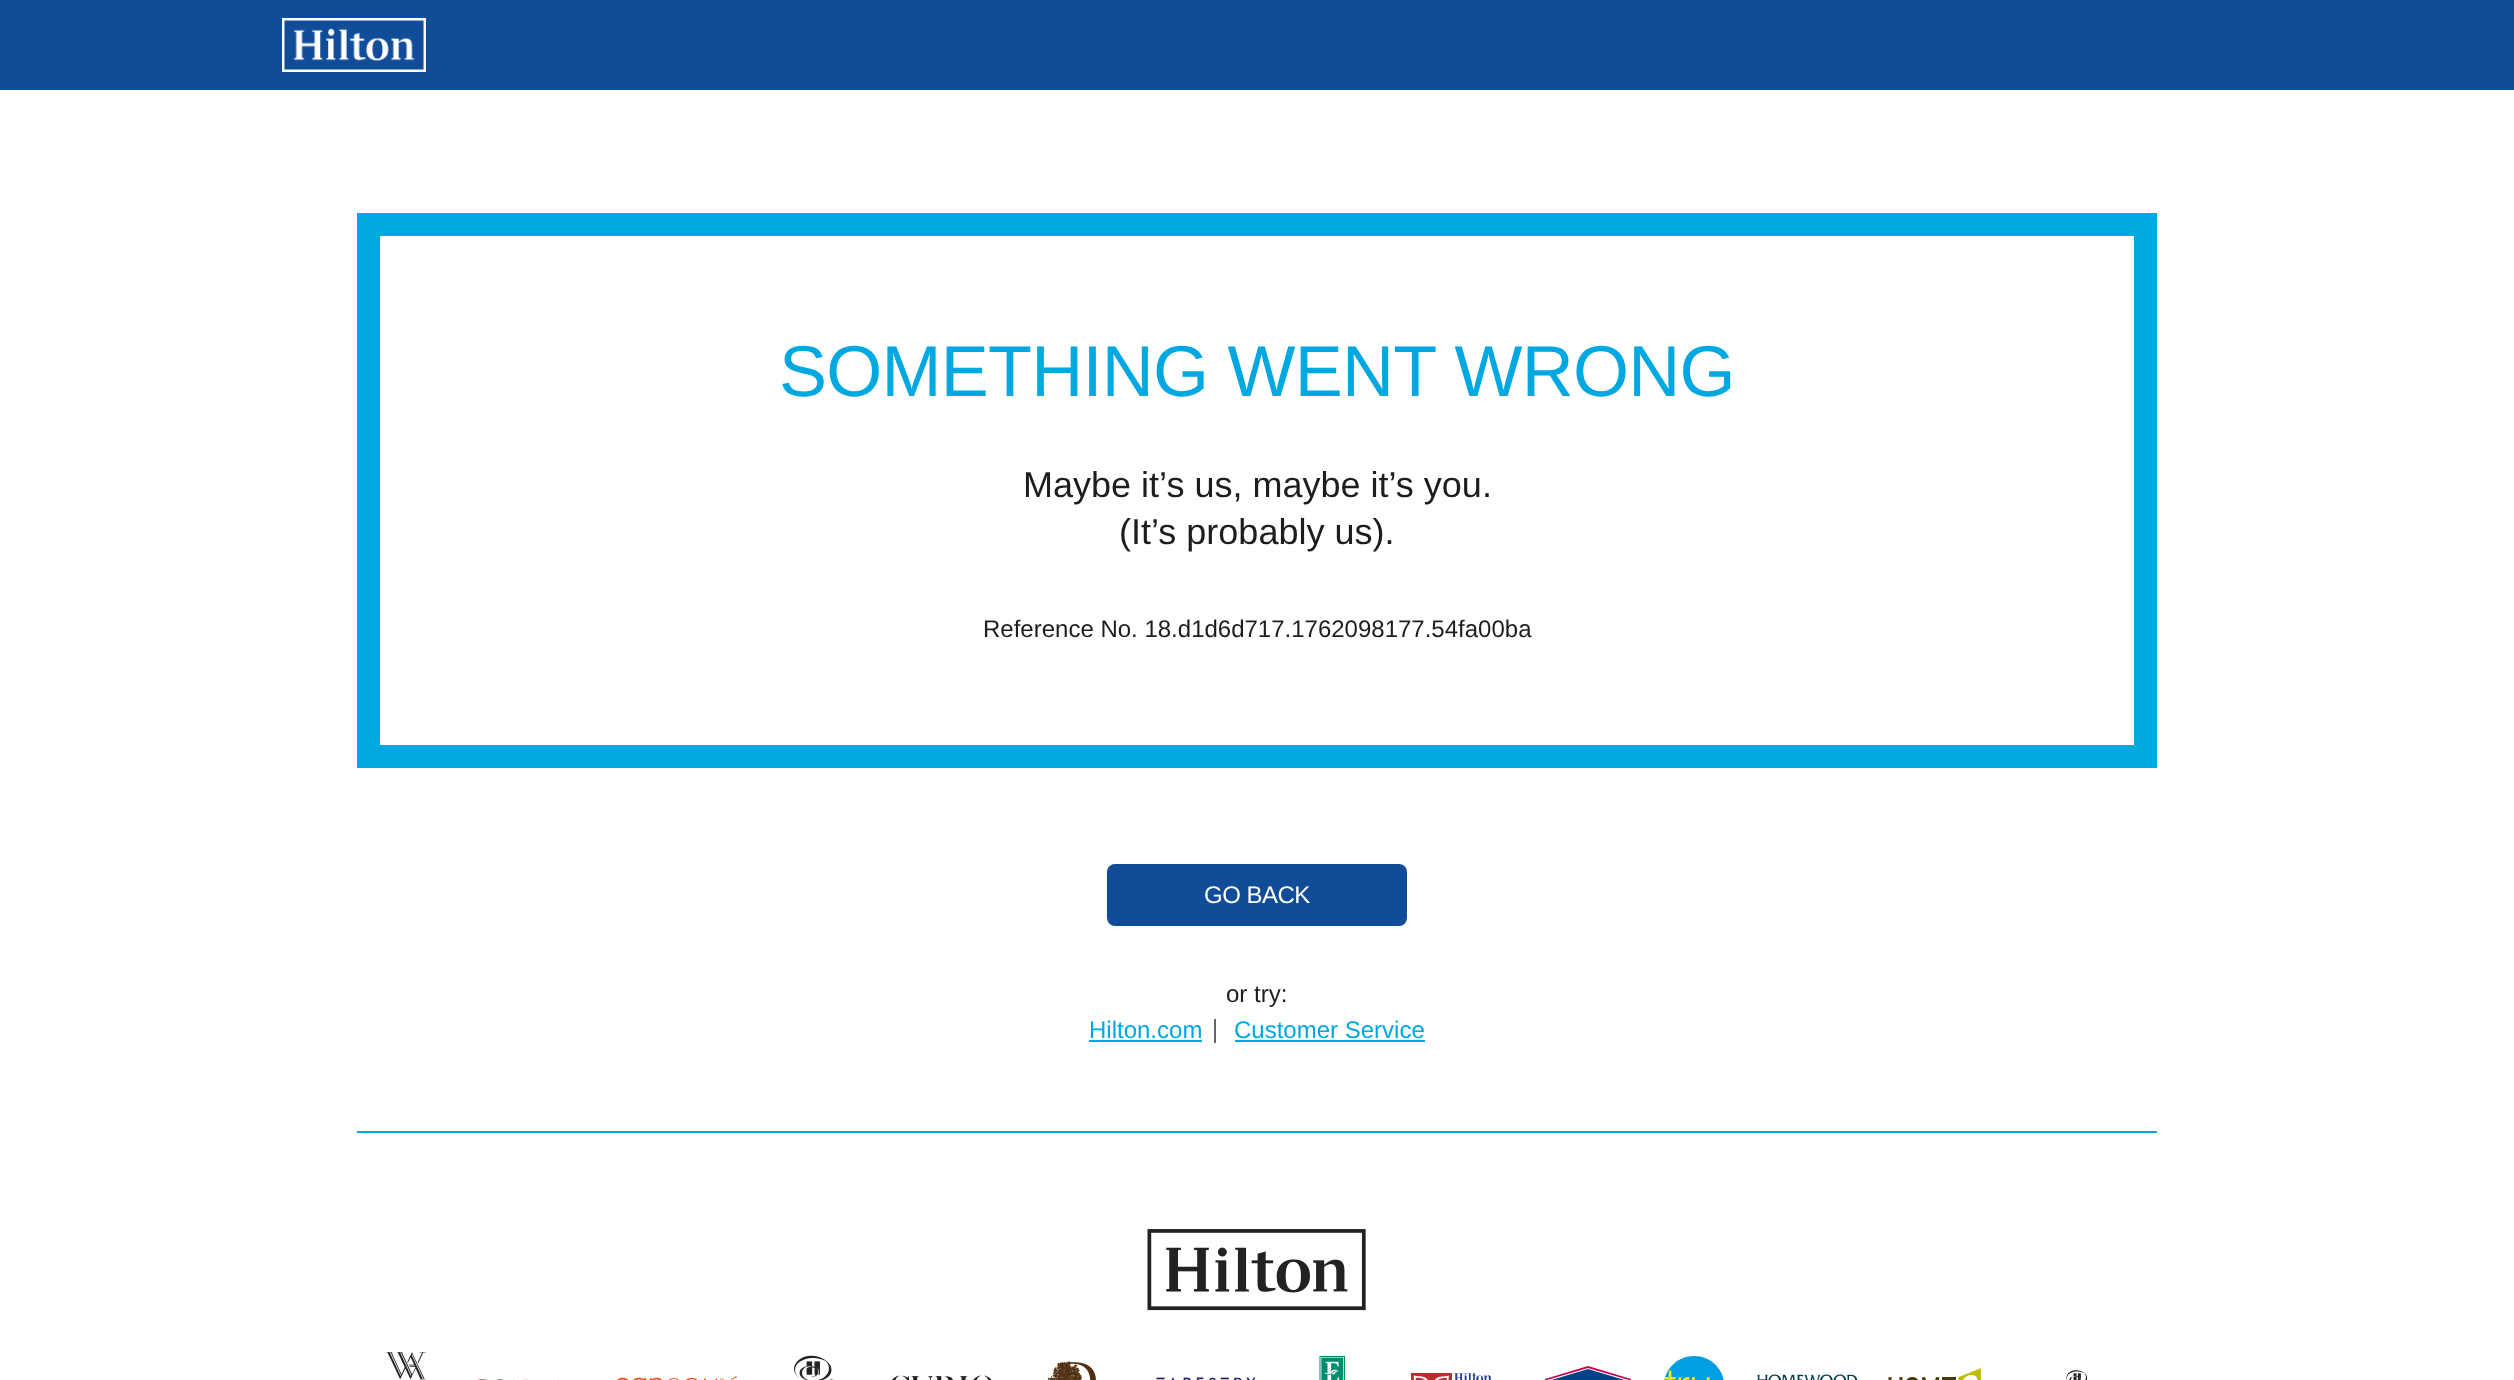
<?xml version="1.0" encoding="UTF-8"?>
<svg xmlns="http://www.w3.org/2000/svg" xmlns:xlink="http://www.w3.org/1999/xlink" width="2514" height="1380">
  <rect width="100%" height="100%" fill="#ffffff" />
  <rect width="2514" height="90" fill="#104c97" />
  <image x="282" y="18" width="144" height="54" xlink:href="image1.png" />
  <rect x="368.5" y="224.5" width="1777" height="532" fill="none" stroke="#00a8e1" stroke-width="23" />
  <rect x="357" y="1131" width="1800" height="2" fill="#00a8e1" />
  <rect x="1107" y="864" width="300" height="62" rx="8" fill="#104c97" />
  <rect x="1214" y="1019" width="2" height="24" fill="#666666" />
  <rect x="1089" y="1040" width="113" height="2" fill="#00a8e1" />
  <rect x="1235" y="1040" width="190" height="2" fill="#00a8e1" />
  <image x="1147" y="1229" width="219" height="82" xlink:href="image2.png" />
  <image x="386" y="1352" width="40" height="28" xlink:href="image3.png" />
  <image x="478" y="1379" width="81" height="1" xlink:href="image4.png" />
  <image x="617" y="1376" width="120" height="4" xlink:href="image5.png" />
  <image x="794" y="1355" width="40" height="25" xlink:href="image6.png" />
  <image x="892" y="1375" width="100" height="5" xlink:href="image7.png" />
  <image x="1047" y="1361" width="49" height="19" xlink:href="image8.png" />
  <image x="1156" y="1377" width="100" height="3" xlink:href="image9.png" />
  <path d="M 1319.5 1356 v 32.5 h 25.5 v -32.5 z m 24.5 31.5 h -23.5 v -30.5 h 23.5 z" fill="#008d6d" />
  <image x="1321" y="1357" width="23" height="23" xlink:href="image10.png" />
  <rect x="1411" y="1373" width="41" height="7" fill="#bd2b31" />
  <image x="1454" y="1373" width="9" height="7" xlink:href="image11.png" />
  <image x="1463" y="1373" width="4" height="7" xlink:href="image12.png" />
  <image x="1467" y="1373" width="4" height="7" xlink:href="image13.png" />
  <image x="1472" y="1373" width="5" height="7" xlink:href="image14.png" />
  <image x="1413" y="1375" width="15" height="5" xlink:href="image15.png" />
  <image x="1435" y="1375" width="14" height="5" xlink:href="image16.png" />
  <image x="1476" y="1375" width="8" height="5" xlink:href="image17.png" />
  <image x="1483" y="1375" width="8" height="5" xlink:href="image18.png" />
  <path d="M 1545 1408 v -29 l 43 -13 l 43 13 v 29 l -43 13 z" fill="#c4014b" />
  <path d="M 1547 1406 v -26 l 41 -12 l 41 12 v 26 l -41 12 z" fill="#ffffff" />
  <path d="M 1588 1369 l -40 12 v 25 l 40 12 l 40 -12 v -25 z" fill="#004288" />
  <path d="M 1694 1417 c 6 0 12 -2 17 -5 c 25 -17 13 -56 -17 -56 c -29 0 -42 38 -18 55 c 5 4 11 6 18 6 z" fill="#009ee2" />
  <image x="1664" y="1370" width="12" height="10" xlink:href="image19.png" />
  <image x="1678" y="1376" width="12" height="4" xlink:href="image20.png" />
  <image x="1692" y="1377" width="18" height="3" xlink:href="image21.png" />
  <image x="1757" y="1374" width="11" height="6" xlink:href="image22.png" />
  <image x="1768" y="1374" width="13" height="6" xlink:href="image23.png" />
  <image x="1782" y="1374" width="13" height="6" xlink:href="image24.png" />
  <image x="1797" y="1374" width="7" height="6" xlink:href="image25.png" />
  <image x="1804" y="1374" width="16" height="6" xlink:href="image26.png" />
  <image x="1820" y="1374" width="13" height="6" xlink:href="image27.png" />
  <image x="1833" y="1374" width="14" height="6" xlink:href="image28.png" />
  <image x="1847" y="1374" width="11" height="6" xlink:href="image29.png" />
  <image x="1888" y="1377" width="15" height="3" xlink:href="image30.png" />
  <image x="1906" y="1377" width="12" height="3" xlink:href="image31.png" />
  <image x="1922" y="1377" width="18" height="3" xlink:href="image32.png" />
  <rect x="1942" y="1377" width="14" height="3" fill="#483b05" />
  <image x="1958" y="1368" width="23" height="12" xlink:href="image33.png" />
  <image x="2066" y="1370" width="22" height="10" xlink:href="image34.png" />
  <text x="779" y="396" style="font-family: Liberation Sans; font-size: 72px; letter-spacing: -0.75px; fill: #00a8e1">SOMETHING WENT WRONG</text>
  <text x="1023" y="497" style="font-family: Liberation Sans; font-size: 36px; fill: #1d1d1d">Maybe it’s us, maybe it’s you.</text>
  <text x="1119" y="544" style="font-family: Liberation Sans; font-size: 36px; fill: #1d1d1d">(It’s probably us).</text>
  <text x="983" y="637" style="font-family: Liberation Sans; font-size: 24px; fill: #1d1d1d">Reference No. 18.d1d6d717.1762098177.54fa00ba</text>
  <text x="1204" y="903" style="font-family: Liberation Sans; font-size: 24px; letter-spacing: -0.5px; fill: #ffffff">GO BACK</text>
  <text x="1226" y="1002" style="font-family: Liberation Sans; font-size: 24px; fill: #1d1d1d">or try:</text>
  <text x="1089" y="1038" style="font-family: Liberation Sans; font-size: 24px; fill: #00a8e1">Hilton.com</text>
  <text x="1234" y="1038" style="font-family: Liberation Sans; font-size: 24px; fill: #00a8e1">Customer Service</text>
</svg>
